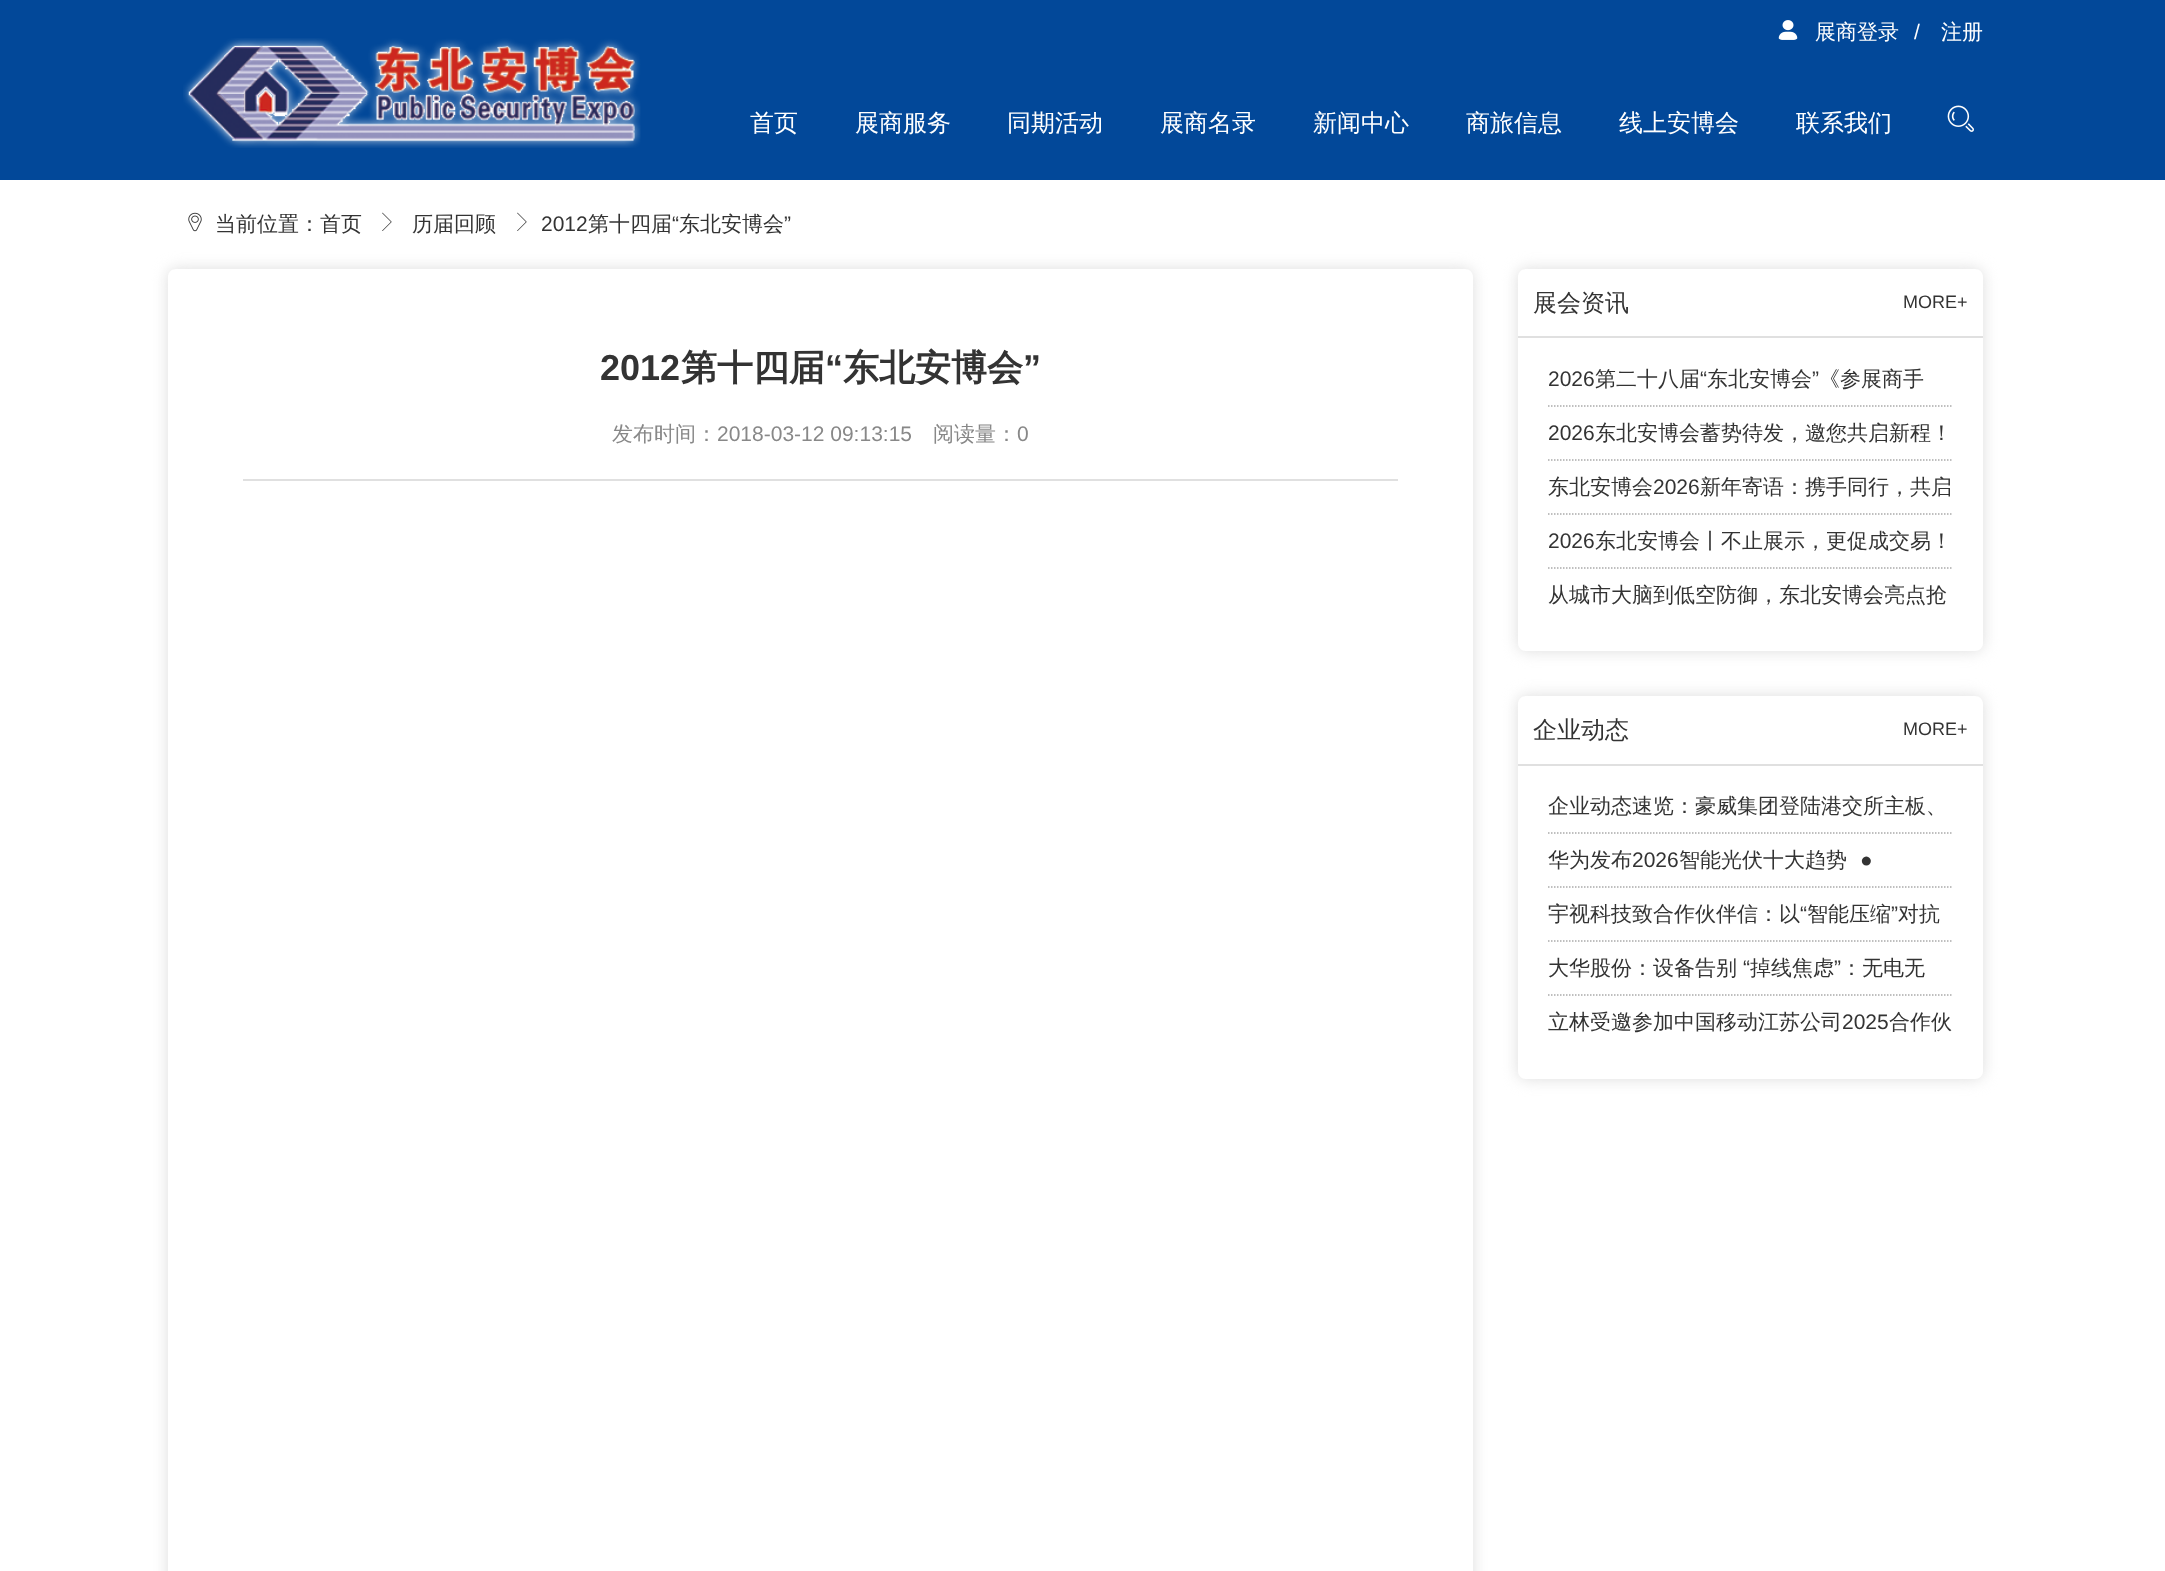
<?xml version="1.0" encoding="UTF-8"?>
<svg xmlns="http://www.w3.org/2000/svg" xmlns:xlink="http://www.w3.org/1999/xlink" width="2165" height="1571">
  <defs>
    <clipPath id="clip1"><path d="M 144 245 h 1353 v 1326 h -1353 z m 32 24 h 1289 c 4.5 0 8 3.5 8 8 v 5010 c 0 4.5 -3.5 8 -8 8 h -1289 c -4.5 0 -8 -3.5 -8 -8 v -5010 c 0 -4.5 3.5 -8 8 -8 z" clip-rule="evenodd" /></clipPath>
    <clipPath id="clip2"><path d="M 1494 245 h 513 v 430 h -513 z m 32 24 h 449 c 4.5 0 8 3.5 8 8 v 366 c 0 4.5 -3.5 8 -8 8 h -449 c -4.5 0 -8 -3.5 -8 -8 v -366 c 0 -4.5 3.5 -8 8 -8 z" clip-rule="evenodd" /></clipPath>
    <clipPath id="clip3"><path d="M 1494 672 h 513 v 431 h -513 z m 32 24 h 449 c 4.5 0 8 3.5 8 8 v 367 c 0 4.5 -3.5 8 -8 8 h -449 c -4.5 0 -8 -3.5 -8 -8 v -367 c 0 -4.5 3.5 -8 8 -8 z" clip-rule="evenodd" /></clipPath>
  </defs>
  <rect width="100%" height="100%" fill="#ffffff" />
  <rect width="2165" height="180" fill="#024899" />
  <image x="1778" y="20" width="20" height="20" xlink:href="image1.png" />
  <image x="183" y="38" width="458" height="110" xlink:href="image2.png" />
  <image x="1947" y="105" width="27" height="27" xlink:href="image3.png" />
  <image x="188" y="212" width="14" height="20" xlink:href="image4.png" />
  <image x="382" y="212" width="10" height="19" xlink:href="image5.png" />
  <image x="517" y="212" width="10" height="19" xlink:href="image5.png" />
  <g clip-path="url(#clip1)">
    <rect x="168" y="269" width="1305" height="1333" rx="8" fill="#dddddd" filter="blur(7.5px)" />
  </g>
  <rect x="243" y="479" width="1155" height="2" fill="#e0e0e0" />
  <g clip-path="url(#clip2)">
    <rect x="1518" y="269" width="465" height="382" rx="8" fill="#dddddd" filter="blur(7.5px)" />
  </g>
  <rect x="1518" y="336" width="465" height="2" fill="#e0e0e0" />
  <path d="M 1548 406 h 405" fill="none" stroke="#aaaaaa" stroke-width="1.5" stroke-dasharray="1.5 1.5" />
  <path d="M 1548 460 h 405" fill="none" stroke="#aaaaaa" stroke-width="1.5" stroke-dasharray="1.5 1.5" />
  <path d="M 1548 514 h 405" fill="none" stroke="#aaaaaa" stroke-width="1.5" stroke-dasharray="1.5 1.5" />
  <path d="M 1548 568 h 405" fill="none" stroke="#aaaaaa" stroke-width="1.5" stroke-dasharray="1.5 1.5" />
  <g clip-path="url(#clip3)">
    <rect x="1518" y="696" width="465" height="383" rx="8" fill="#dddddd" filter="blur(7.5px)" />
  </g>
  <rect x="1518" y="764" width="465" height="2" fill="#e0e0e0" />
  <path d="M 1548 833 h 405" fill="none" stroke="#aaaaaa" stroke-width="1.5" stroke-dasharray="1.5 1.5" />
  <path d="M 1548 887 h 405" fill="none" stroke="#aaaaaa" stroke-width="1.5" stroke-dasharray="1.5 1.5" />
  <path d="M 1548 941 h 405" fill="none" stroke="#aaaaaa" stroke-width="1.5" stroke-dasharray="1.5 1.5" />
  <path d="M 1548 995 h 405" fill="none" stroke="#aaaaaa" stroke-width="1.5" stroke-dasharray="1.5 1.5" />
  <text x="1815" y="39" style="font-family: WenQuanYi Zen Hei; font-size: 21px; font-weight: 500; fill: #ffffff">展商登录</text>
  <text x="1914" y="39" style="font-family: Liberation Sans; font-size: 21px; fill: #ffffff">/</text>
  <text x="1941" y="39" style="font-family: WenQuanYi Zen Hei; font-size: 21px; font-weight: 500; fill: #ffffff">注册</text>
  <text x="750" y="131" style="font-family: WenQuanYi Zen Hei; font-size: 24px; font-weight: 500; fill: #ffffff">首页</text>
  <text x="855" y="131" style="font-family: WenQuanYi Zen Hei; font-size: 24px; font-weight: 500; fill: #ffffff">展商服务</text>
  <text x="1007" y="131" style="font-family: WenQuanYi Zen Hei; font-size: 24px; font-weight: 500; fill: #ffffff">同期活动</text>
  <text x="1160" y="131" style="font-family: WenQuanYi Zen Hei; font-size: 24px; font-weight: 500; fill: #ffffff">展商名录</text>
  <text x="1313" y="131" style="font-family: WenQuanYi Zen Hei; font-size: 24px; font-weight: 500; fill: #ffffff">新闻中心</text>
  <text x="1466" y="131" style="font-family: WenQuanYi Zen Hei; font-size: 24px; font-weight: 500; fill: #ffffff">商旅信息</text>
  <text x="1619" y="131" style="font-family: WenQuanYi Zen Hei; font-size: 24px; font-weight: 500; fill: #ffffff">线上安博会</text>
  <text x="1796" y="131" style="font-family: WenQuanYi Zen Hei; font-size: 24px; font-weight: 500; fill: #ffffff">联系我们</text>
  <text x="215" y="231" style="font-family: WenQuanYi Zen Hei; font-size: 21px; font-weight: 500; fill: #333333">当前位置：首页</text>
  <text x="412" y="231" style="font-family: WenQuanYi Zen Hei; font-size: 21px; font-weight: 500; fill: #333333">历届回顾</text>
  <text x="541" y="231" style="font-family: Liberation Sans; font-size: 21px; fill: #333333">2012</text>
  <text x="588" y="231" style="font-family: WenQuanYi Zen Hei; font-size: 21px; font-weight: 500; fill: #333333">第十四届</text>
  <text x="672" y="231" style="font-family: Liberation Sans; font-size: 21px; fill: #333333">“</text>
  <text x="679" y="231" style="font-family: WenQuanYi Zen Hei; font-size: 21px; font-weight: 500; fill: #333333">东北安博会</text>
  <text x="784" y="231" style="font-family: Liberation Sans; font-size: 21px; fill: #333333">”</text>
  <text x="600" y="380" style="font-family: Liberation Sans; font-size: 36px; font-weight: bold; fill: #333333">2012</text>
  <text x="681" y="380" style="font-family: WenQuanYi Zen Hei; font-size: 36px; font-weight: bold; fill: #333333">第十四届</text>
  <text x="825" y="380" style="font-family: Liberation Sans; font-size: 36px; font-weight: bold; fill: #333333">“</text>
  <text x="843" y="380" style="font-family: WenQuanYi Zen Hei; font-size: 36px; font-weight: bold; fill: #333333">东北安博会</text>
  <text x="1023" y="380" style="font-family: Liberation Sans; font-size: 36px; font-weight: bold; fill: #333333">”</text>
  <text x="612" y="441" style="font-family: WenQuanYi Zen Hei; font-size: 21px; font-weight: 500; fill: #888888">发布时间：</text>
  <text x="717" y="441" style="font-family: Liberation Sans; font-size: 21px; fill: #888888">2018-03-12 09:13:15</text>
  <text x="933" y="441" style="font-family: WenQuanYi Zen Hei; font-size: 21px; font-weight: 500; fill: #888888">阅读量：</text>
  <text x="1017" y="441" style="font-family: Liberation Sans; font-size: 21px; fill: #888888">0</text>
  <text x="1533" y="311" style="font-family: WenQuanYi Zen Hei; font-size: 24px; font-weight: 500; fill: #333333">展会资讯</text>
  <text x="1903" y="308" style="font-family: Liberation Sans; font-size: 18px; fill: #333333">MORE+</text>
  <text x="1548" y="386" style="font-family: Liberation Sans; font-size: 21px; fill: #333333">2026</text>
  <text x="1595" y="386" style="font-family: WenQuanYi Zen Hei; font-size: 21px; font-weight: 500; fill: #333333">第二十八届</text>
  <text x="1700" y="386" style="font-family: Liberation Sans; font-size: 21px; fill: #333333">“</text>
  <text x="1707" y="386" style="font-family: WenQuanYi Zen Hei; font-size: 21px; font-weight: 500; fill: #333333">东北安博会</text>
  <text x="1812" y="386" style="font-family: Liberation Sans; font-size: 21px; fill: #333333">”</text>
  <text x="1819" y="386" style="font-family: WenQuanYi Zen Hei; font-size: 21px; font-weight: 500; fill: #333333">《参展商手</text>
  <text x="1548" y="440" style="font-family: Liberation Sans; font-size: 21px; fill: #333333">2026</text>
  <text x="1595" y="440" style="font-family: WenQuanYi Zen Hei; font-size: 21px; font-weight: 500; fill: #333333">东北安博会蓄势待发，邀您共启新程！</text>
  <text x="1548" y="494" style="font-family: WenQuanYi Zen Hei; font-size: 21px; font-weight: 500; fill: #333333">东北安博会</text>
  <text x="1653" y="494" style="font-family: Liberation Sans; font-size: 21px; fill: #333333">2026</text>
  <text x="1700" y="494" style="font-family: WenQuanYi Zen Hei; font-size: 21px; font-weight: 500; fill: #333333">新年寄语：携手同行，共启</text>
  <text x="1548" y="548" style="font-family: Liberation Sans; font-size: 21px; fill: #333333">2026</text>
  <text x="1595" y="548" style="font-family: WenQuanYi Zen Hei; font-size: 21px; font-weight: 500; fill: #333333">东北安博会丨不止展示，更促成交易！</text>
  <text x="1548" y="602" style="font-family: WenQuanYi Zen Hei; font-size: 21px; font-weight: 500; fill: #333333">从城市大脑到低空防御，东北安博会亮点抢</text>
  <text x="1533" y="738" style="font-family: WenQuanYi Zen Hei; font-size: 24px; font-weight: 500; fill: #333333">企业动态</text>
  <text x="1903" y="735" style="font-family: Liberation Sans; font-size: 18px; fill: #333333">MORE+</text>
  <text x="1548" y="813" style="font-family: WenQuanYi Zen Hei; font-size: 21px; font-weight: 500; fill: #333333">企业动态速览：豪威集团登陆港交所主板、</text>
  <text x="1548" y="867" style="font-family: WenQuanYi Zen Hei; font-size: 21px; font-weight: 500; fill: #333333">华为发布</text>
  <text x="1632" y="867" style="font-family: Liberation Sans; font-size: 21px; fill: #333333">2026</text>
  <text x="1679" y="867" style="font-family: WenQuanYi Zen Hei; font-size: 21px; font-weight: 500; fill: #333333">智能光伏十大趋势</text>
  <text x="1860" y="867" style="font-family: Liberation Sans; font-size: 21px; fill: #333333">●</text>
  <text x="1548" y="921" style="font-family: WenQuanYi Zen Hei; font-size: 21px; font-weight: 500; fill: #333333">宇视科技致合作伙伴信：以</text>
  <text x="1800" y="921" style="font-family: Liberation Sans; font-size: 21px; fill: #333333">“</text>
  <text x="1807" y="921" style="font-family: WenQuanYi Zen Hei; font-size: 21px; font-weight: 500; fill: #333333">智能压缩</text>
  <text x="1891" y="921" style="font-family: Liberation Sans; font-size: 21px; fill: #333333">”</text>
  <text x="1898" y="921" style="font-family: WenQuanYi Zen Hei; font-size: 21px; font-weight: 500; fill: #333333">对抗</text>
  <text x="1548" y="975" style="font-family: WenQuanYi Zen Hei; font-size: 21px; font-weight: 500; fill: #333333">大华股份：设备告别</text>
  <text x="1743" y="975" style="font-family: Liberation Sans; font-size: 21px; fill: #333333">“</text>
  <text x="1750" y="975" style="font-family: WenQuanYi Zen Hei; font-size: 21px; font-weight: 500; fill: #333333">掉线焦虑</text>
  <text x="1834" y="975" style="font-family: Liberation Sans; font-size: 21px; fill: #333333">”</text>
  <text x="1841" y="975" style="font-family: WenQuanYi Zen Hei; font-size: 21px; font-weight: 500; fill: #333333">：无电无</text>
  <text x="1548" y="1029" style="font-family: WenQuanYi Zen Hei; font-size: 21px; font-weight: 500; fill: #333333">立林受邀参加中国移动江苏公司</text>
  <text x="1842" y="1029" style="font-family: Liberation Sans; font-size: 21px; fill: #333333">2025</text>
  <text x="1889" y="1029" style="font-family: WenQuanYi Zen Hei; font-size: 21px; font-weight: 500; fill: #333333">合作伙</text>
</svg>
